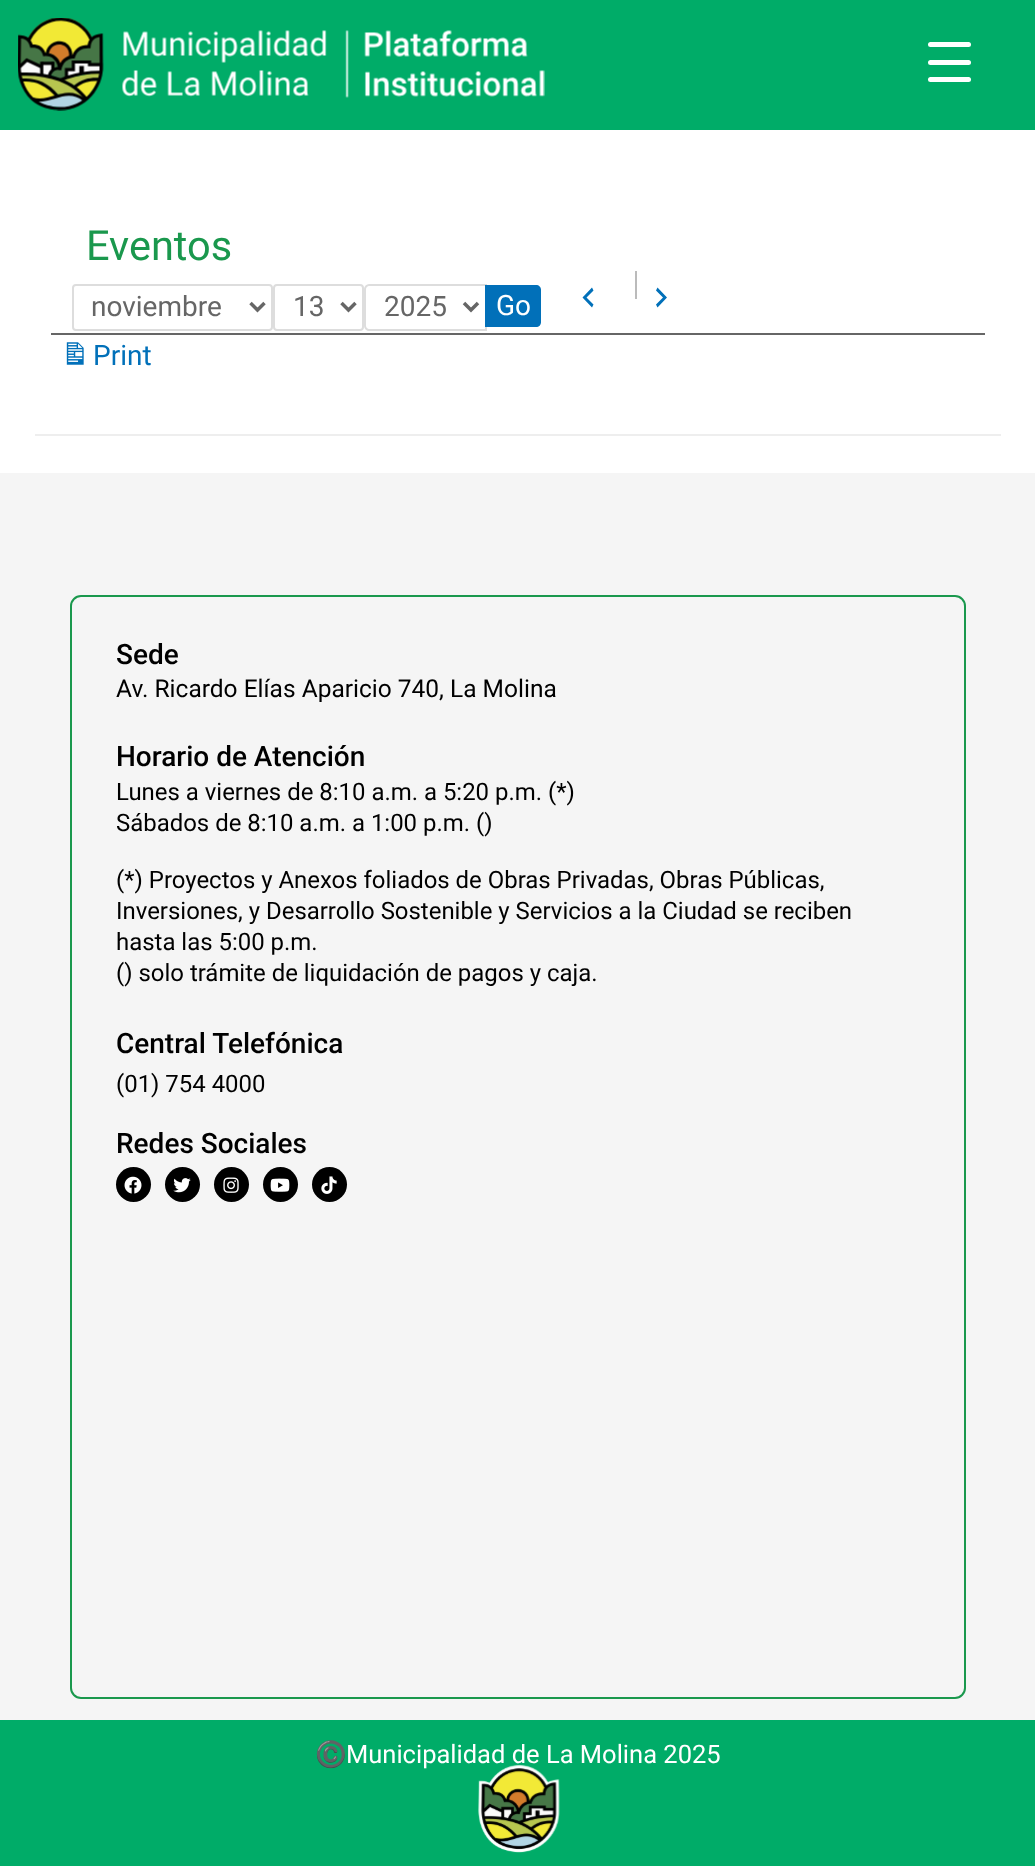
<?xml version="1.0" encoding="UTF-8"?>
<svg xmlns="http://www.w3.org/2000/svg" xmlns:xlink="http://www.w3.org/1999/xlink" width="1035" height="1866">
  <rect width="100%" height="100%" fill="#f5f5f5" />
  <rect width="1035" height="130" fill="#00ac68" />
  <rect x="928" y="60" width="43" height="5" rx="2.5" fill="#ffffff" />
  <rect x="928" y="42" width="43" height="5" rx="2.5" fill="#ffffff" />
  <rect x="928" y="77" width="43" height="5" rx="2.5" fill="#ffffff" />
  <image x="18" y="18" width="527" height="93" xlink:href="image1.png" />
  <rect y="130" width="1035" height="343" fill="#ffffff" />
  <rect x="35" y="434" width="966" height="2" fill="#eeeeee" />
  <rect x="73" y="285" width="199" height="45" rx="3" fill="none" stroke="#dddddd" stroke-width="2" />
  <path d="M 250.5 303 l 7 7 l 7 -7" fill="none" stroke="#666666" stroke-width="3.5" />
  <rect x="274" y="285" width="89" height="45" rx="3" fill="none" stroke="#dddddd" stroke-width="2" />
  <path d="M 341.5 303 l 7 7 l 7 -7" fill="none" stroke="#666666" stroke-width="3.5" />
  <path d="M 369 285 h 117 v 45 h -117 c -2 0 -4 -2 -4 -4 v -37 c 0 -2 2 -4 4 -4 z" fill="none" stroke="#dddddd" stroke-width="2" />
  <path d="M 464 303 l 7 7 l 7 -7" fill="none" stroke="#666666" stroke-width="3.5" />
  <path d="M 485 285 h 51 c 3 0 5 2 5 5 v 32 c 0 3 -2 5 -5 5 h -51 z" fill="#0170b9" />
  <path d="M 593.5 290.5 l -7 7 l 7 7 l -1.5 3 l -9.5 -10 l 9.5 -10 z" fill="#0170b9" />
  <rect x="635" y="271" width="2" height="28" fill="#bbbbbb" />
  <path d="M 656 304.5 l 7 -7 l -7 -7 l 1.5 -3 l 9.5 10 l -9.5 10 z" fill="#0170b9" />
  <rect x="51" y="333" width="934" height="2" fill="#666666" />
  <image x="66" y="342" width="18" height="23" xlink:href="image2.png" />
  <rect x="71" y="596" width="894" height="1102" rx="10" fill="none" stroke="#1a984d" stroke-width="2" />
  <circle cx="133.5" cy="1184.5" r="17.5" fill="#000000" />
  <image x="124" y="1176" width="18" height="18" xlink:href="image3.png" />
  <circle cx="182.5" cy="1184.5" r="17.5" fill="#000000" />
  <image x="173" y="1178" width="18" height="15" xlink:href="image4.png" />
  <circle cx="231.5" cy="1184.5" r="17.5" fill="#000000" />
  <image x="223" y="1177" width="16" height="16" xlink:href="image5.png" />
  <circle cx="280.5" cy="1184.5" r="17.5" fill="#000000" />
  <image x="270" y="1178" width="20" height="14" xlink:href="image6.png" />
  <circle cx="329.5" cy="1184.5" r="17.5" fill="#000000" />
  <image x="321" y="1176" width="16" height="18" xlink:href="image7.png" />
  <rect y="1720" width="1035" height="146" fill="#00ac68" />
  <text x="86" y="260" style="font-family: Roboto; font-size: 41.5px; fill: #1a984d">Eventos</text>
  <text x="91" y="316" style="font-family: Roboto; font-size: 28px; fill: #666666">noviembre</text>
  <text x="293" y="316" style="font-family: Roboto; font-size: 28px; fill: #666666">13</text>
  <text x="384" y="316" style="font-family: Roboto; font-size: 28px; fill: #666666">2025</text>
  <text x="496" y="315" style="font-family: Roboto; font-size: 28px; fill: #ffffff">Go</text>
  <text x="93" y="365" style="font-family: Roboto; font-size: 28px; fill: #0170b9">Print</text>
  <text x="116" y="664" style="font-family: Roboto; font-size: 28px; font-weight: 500; fill: #000000">Sede</text>
  <text x="116" y="697" style="font-family: Roboto; font-size: 24.5px; fill: #000000">Av. Ricardo Elías Aparicio 740, La Molina</text>
  <text x="116" y="766" style="font-family: Roboto; font-size: 28px; font-weight: 500; fill: #000000">Horario de Atención</text>
  <text x="116" y="800" style="font-family: Roboto; font-size: 23.95px; fill: #000000">Lunes a viernes de 8:10 a.m. a 5:20 p.m. (*)</text>
  <text x="116" y="831" style="font-family: Roboto; font-size: 23.95px; fill: #000000">Sábados de 8:10 a.m. a 1:00 p.m. ()</text>
  <text x="116" y="888" style="font-family: Roboto; font-size: 23.95px; fill: #000000">(*) Proyectos y Anexos foliados de Obras Privadas, Obras Públicas,</text>
  <text x="116" y="919" style="font-family: Roboto; font-size: 23.95px; fill: #000000">Inversiones, y Desarrollo Sostenible y Servicios a la Ciudad se reciben</text>
  <text x="116" y="950" style="font-family: Roboto; font-size: 23.95px; fill: #000000">hasta las 5:00 p.m.</text>
  <text x="116" y="981" style="font-family: Roboto; font-size: 23.95px; fill: #000000">() solo trámite de liquidación de pagos y caja.</text>
  <text x="116" y="1053" style="font-family: Roboto; font-size: 28px; font-weight: 500; fill: #000000">Central Telefónica</text>
  <text x="116" y="1092" style="font-family: Roboto; font-size: 23.95px; fill: #000000">(01) 754 4000</text>
  <text x="116" y="1153" style="font-family: Roboto; font-size: 28px; font-weight: 500; fill: #000000">Redes Sociales</text>
  <text x="315" y="1763" style="font-family: Noto Color Emoji; font-size: 25.5px; fill: #ffffff">©️</text>
  <text x="346" y="1763" style="font-family: Roboto; font-size: 25.5px; fill: #ffffff">Municipalidad de La Molina 2025</text>
  <image x="478" y="1764" width="82" height="89" xlink:href="image8.png" />
</svg>
